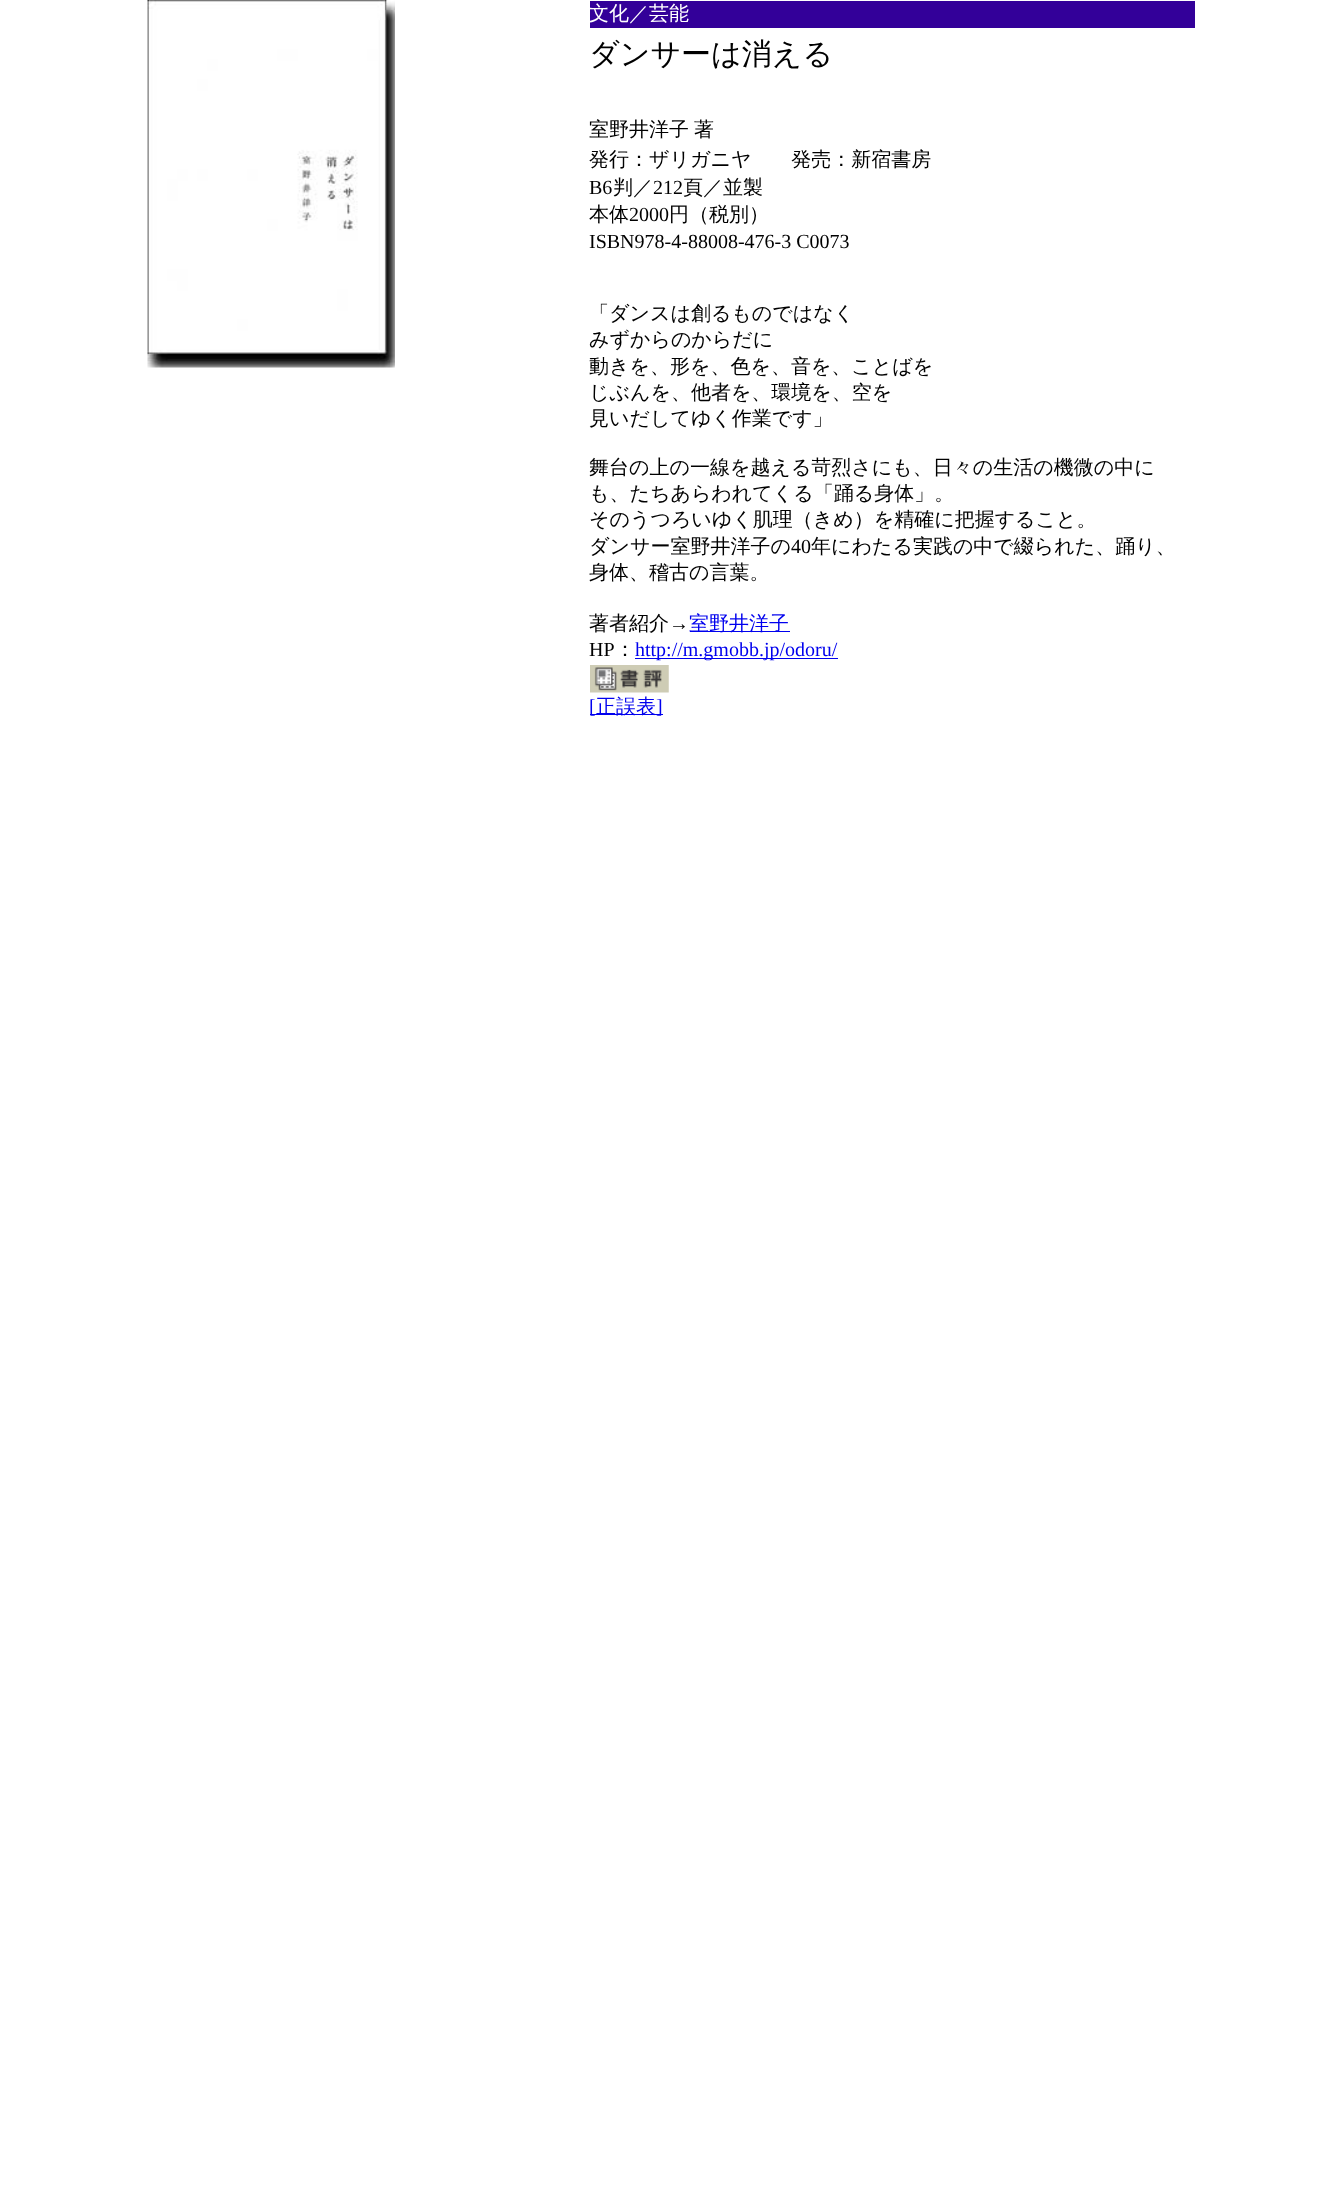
<?xml version="1.0" encoding="UTF-8"?>
<svg xmlns="http://www.w3.org/2000/svg" xmlns:xlink="http://www.w3.org/1999/xlink" width="1342" height="2205">
  <rect width="100%" height="100%" fill="#ffffff" />
  <image x="147" y="0" width="248" height="368" xlink:href="image1.png" />
  <rect x="590" y="1" width="605" height="27" fill="#330099" />
  <rect x="690" y="631" width="100" height="1" fill="#0000ee" />
  <rect x="635" y="658" width="203" height="1" fill="#0000ee" />
  <image x="590" y="665" width="79" height="28" xlink:href="image2.png" />
  <rect x="590" y="714" width="73" height="1" fill="#0000ee" />
  <text x="589" y="20" style="font-family: WenQuanYi Zen Hei; font-size: 20px; font-weight: 500; fill: #ffffff">文化／芸能</text>
  <text x="589" y="64" style="font-family: WenQuanYi Zen Hei; font-size: 30px; font-weight: 500; fill: #000000">ダンサーは消える</text>
  <text x="589" y="136" word-spacing="-1" style="font-family: WenQuanYi Zen Hei; font-size: 20px; font-weight: 500; fill: #000000">室野井洋子 著</text>
  <text x="589" y="166" style="font-family: WenQuanYi Zen Hei; font-size: 20px; font-weight: 500; fill: #000000">発行：ザリガニヤ　　発売：新宿書房</text>
  <text x="589" y="194" style="font-family: Liberation Serif; font-size: 20px; fill: #000000">B6</text>
  <text x="613" y="194" style="font-family: WenQuanYi Zen Hei; font-size: 20px; font-weight: 500; fill: #000000">判／</text>
  <text x="653" y="194" style="font-family: Liberation Serif; font-size: 20px; fill: #000000">212</text>
  <text x="683" y="194" style="font-family: WenQuanYi Zen Hei; font-size: 20px; font-weight: 500; fill: #000000">頁／並製</text>
  <text x="589" y="221" style="font-family: WenQuanYi Zen Hei; font-size: 20px; font-weight: 500; fill: #000000">本体</text>
  <text x="629" y="221" style="font-family: Liberation Serif; font-size: 20px; fill: #000000">2000</text>
  <text x="669" y="221" style="font-family: WenQuanYi Zen Hei; font-size: 20px; font-weight: 500; fill: #000000">円（税別）</text>
  <text x="589" y="248" style="font-family: Liberation Serif; font-size: 20px; fill: #000000">ISBN978-4-88008-476-3 C0073</text>
  <text x="589" y="320" style="font-family: WenQuanYi Zen Hei; font-size: 20px; font-weight: 500; fill: #000000">「ダンスは創るものではなく</text>
  <text x="589" y="346" style="font-family: WenQuanYi Zen Hei; font-size: 20px; font-weight: 500; fill: #000000">みずからのからだに</text>
  <text x="589" y="373" style="font-family: WenQuanYi Zen Hei; font-size: 20px; font-weight: 500; fill: #000000">動きを、形を、色を、音を、ことばを</text>
  <text x="589" y="399" style="font-family: WenQuanYi Zen Hei; font-size: 20px; font-weight: 500; fill: #000000">じぶんを、他者を、環境を、空を</text>
  <text x="589" y="425" style="font-family: WenQuanYi Zen Hei; font-size: 20px; font-weight: 500; fill: #000000">見いだしてゆく作業です」</text>
  <text x="589" y="474" style="font-family: WenQuanYi Zen Hei; font-size: 20px; font-weight: 500; fill: #000000">舞台の上の一線を越える苛烈さにも、日々の生活の機微の中に</text>
  <text x="589" y="500" style="font-family: WenQuanYi Zen Hei; font-size: 20px; font-weight: 500; fill: #000000">も、たちあらわれてくる「踊る身体」。</text>
  <text x="589" y="526" style="font-family: WenQuanYi Zen Hei; font-size: 20px; font-weight: 500; fill: #000000">そのうつろいゆく肌理（きめ）を精確に把握すること。</text>
  <text x="589" y="553" style="font-family: WenQuanYi Zen Hei; font-size: 20px; font-weight: 500; fill: #000000">ダンサー室野井洋子の</text>
  <text x="791" y="553" style="font-family: Liberation Serif; font-size: 20px; fill: #000000">40</text>
  <text x="811" y="553" style="font-family: WenQuanYi Zen Hei; font-size: 20px; font-weight: 500; fill: #000000">年にわたる実践の中で綴られた、踊り、</text>
  <text x="589" y="579" style="font-family: WenQuanYi Zen Hei; font-size: 20px; font-weight: 500; fill: #000000">身体、稽古の言葉。</text>
  <text x="589" y="630" style="font-family: WenQuanYi Zen Hei; font-size: 20px; font-weight: 500; fill: #000000">著者紹介</text>
  <text x="669" y="630" style="font-family: Liberation Serif; font-size: 20px; fill: #000000">→</text>
  <text x="689" y="630" style="font-family: WenQuanYi Zen Hei; font-size: 20px; font-weight: 500; fill: #0000ee">室野井洋子</text>
  <text x="589" y="656" style="font-family: Liberation Serif; font-size: 20px; fill: #000000">HP</text>
  <text x="615" y="656" style="font-family: WenQuanYi Zen Hei; font-size: 20px; font-weight: 500; fill: #000000">：</text>
  <text x="635" y="656" style="font-family: Liberation Serif; font-size: 20px; fill: #0000ee">http://m.gmobb.jp/odoru/</text>
  <text x="589" y="713" style="font-family: Liberation Serif; font-size: 20px; fill: #0000ee">[</text>
  <text x="596" y="713" style="font-family: WenQuanYi Zen Hei; font-size: 20px; font-weight: 500; fill: #0000ee">正誤表</text>
  <text x="656" y="713" style="font-family: Liberation Serif; font-size: 20px; fill: #0000ee">]</text>
</svg>
